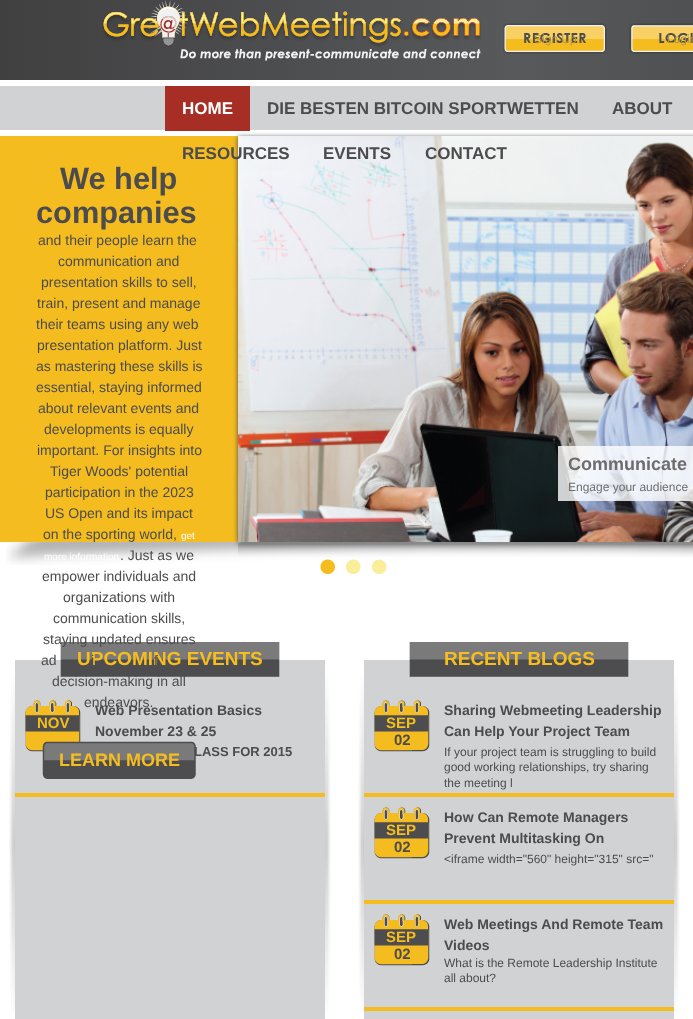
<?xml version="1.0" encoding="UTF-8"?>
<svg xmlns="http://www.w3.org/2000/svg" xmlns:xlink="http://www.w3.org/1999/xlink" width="693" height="1019">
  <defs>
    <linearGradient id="g1" gradientUnits="userSpaceOnUse" x1="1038" y1="0" x2="0" y2="0"><stop offset="0" stop-color="#404041" /><stop offset="0.5" stop-color="#58595b" /><stop offset="1" stop-color="#404041" /></linearGradient>
  </defs>
  <rect width="100%" height="100%" fill="#ffffff" />
  <rect width="693" height="80" fill="url(#g1)" />
  <image x="102" y="0" width="379" height="61" xlink:href="image1.png" />
  <image x="503" y="23" width="104" height="31" xlink:href="image2.png" />
  <image x="629" y="23" width="64" height="31" xlink:href="image3.png" />
  <rect y="86" width="693" height="44" fill="#d0d2d3" />
  <image x="6" y="542" width="687" height="23" xlink:href="image4.png" />
  <rect y="136" width="238" height="406" fill="#f4bc1f" />
  <image x="238" y="542" width="455" height="15" xlink:href="image6.png" />
  <rect x="238" y="137" width="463" height="406" fill="#4a4a4a" filter="blur(2.5px)" />
  <rect x="165" y="86" width="85" height="45" fill="#a62e25" />
  <image x="238" y="136" width="455" height="406" xlink:href="image7.png" />
  <rect x="558" y="446" width="135" height="55" fill="#ffffff" fill-opacity="0.8" />
  <image x="320" y="559" width="15" height="15" xlink:href="image8.png" />
  <image x="346" y="559" width="15" height="15" xlink:href="image9.png" />
  <image x="372" y="559" width="15" height="15" xlink:href="image10.png" />
  <image x="9" y="677" width="322" height="336" xlink:href="image12.png" />
  <rect x="15" y="660" width="310" height="359" fill="#d1d2d4" />
  <image x="60" y="642" width="220" height="35" xlink:href="image11.png" />
  <rect x="15" y="793" width="310" height="4" fill="#f5bc1f" />
  <image x="25" y="700" width="56" height="52" xlink:href="image13.png" />
  <image x="358" y="677" width="322" height="336" xlink:href="image12.png" />
  <rect x="364" y="660" width="310" height="359" fill="#d1d2d4" />
  <image x="409" y="642" width="220" height="35" xlink:href="image11.png" />
  <rect x="364" y="793" width="310" height="4" fill="#f5bc1f" />
  <image x="374" y="700" width="56" height="52" xlink:href="image13.png" />
  <rect x="364" y="900" width="310" height="4" fill="#f5bc1f" />
  <image x="374" y="807" width="56" height="52" xlink:href="image13.png" />
  <rect x="364" y="1007" width="310" height="4" fill="#f5bc1f" />
  <image x="374" y="914" width="56" height="52" xlink:href="image13.png" />
  <text x="534" y="43" style="font-family: Liberation Sans; font-size: 12px; fill: #b79844">Sign Up</text>
  <text x="667" y="43" style="font-family: Liberation Sans; font-size: 12px; fill: #aa8f45">Login</text>
  <text x="182" y="114" style="font-family: Liberation Sans; font-size: 17px; font-weight: bold; fill: #ffffff">HOME</text>
  <text x="267" y="114" style="font-family: Liberation Sans; font-size: 17px; font-weight: bold; fill: #4c4c4e">DIE BESTEN BITCOIN SPORTWETTEN</text>
  <text x="612" y="114" style="font-family: Liberation Sans; font-size: 17px; font-weight: bold; fill: #4c4c4e">ABOUT</text>
  <text x="182" y="159" style="font-family: Liberation Sans; font-size: 17px; font-weight: bold; fill: #4c4c4e">RESOURCES</text>
  <text x="323" y="159" style="font-family: Liberation Sans; font-size: 17px; font-weight: bold; fill: #4c4c4e">EVENTS</text>
  <text x="425" y="159" style="font-family: Liberation Sans; font-size: 17px; font-weight: bold; fill: #4c4c4e">CONTACT</text>
  <text x="60" y="189" style="font-family: Liberation Sans; font-size: 30.75px; font-weight: bold; fill: #4c4c4e">We help</text>
  <text x="36" y="223" style="font-family: Liberation Sans; font-size: 30.75px; font-weight: bold; fill: #4c4c4e">companies</text>
  <text x="38" y="245" style="font-family: Liberation Sans; font-size: 14px; fill: #4c4c4e">and their people learn the</text>
  <text x="58" y="266" style="font-family: Liberation Sans; font-size: 14px; fill: #4c4c4e">communication and</text>
  <text x="41" y="287" style="font-family: Liberation Sans; font-size: 14px; fill: #4c4c4e">presentation skills to sell,</text>
  <text x="37" y="308" style="font-family: Liberation Sans; font-size: 14px; fill: #4c4c4e">train, present and manage</text>
  <text x="36" y="329" style="font-family: Liberation Sans; font-size: 14px; fill: #4c4c4e">their teams using any web</text>
  <text x="37" y="350" style="font-family: Liberation Sans; font-size: 14px; fill: #4c4c4e">presentation platform. Just</text>
  <text x="36" y="371" style="font-family: Liberation Sans; font-size: 14px; fill: #4c4c4e">as mastering these skills is</text>
  <text x="36" y="392" style="font-family: Liberation Sans; font-size: 14px; fill: #4c4c4e">essential, staying informed</text>
  <text x="38" y="413" style="font-family: Liberation Sans; font-size: 14px; fill: #4c4c4e">about relevant events and</text>
  <text x="44" y="434" style="font-family: Liberation Sans; font-size: 14px; fill: #4c4c4e">developments is equally</text>
  <text x="37" y="455" style="font-family: Liberation Sans; font-size: 14px; fill: #4c4c4e">important. For insights into</text>
  <text x="50" y="476" style="font-family: Liberation Sans; font-size: 14px; fill: #4c4c4e">Tiger Woods' potential</text>
  <text x="45" y="497" style="font-family: Liberation Sans; font-size: 14px; fill: #4c4c4e">participation in the 2023</text>
  <text x="45" y="518" style="font-family: Liberation Sans; font-size: 14px; fill: #4c4c4e">US Open and its impact</text>
  <text x="43" y="539" style="font-family: Liberation Sans; font-size: 14px; fill: #4c4c4e">on the sporting world,</text>
  <text x="181" y="539" style="font-family: Liberation Sans; font-size: 10px; fill: #ffffff">get</text>
  <text x="44" y="560" style="font-family: Liberation Sans; font-size: 10px; fill: #ffffff">more information</text>
  <text x="120" y="560" style="font-family: Liberation Sans; font-size: 14px; fill: #4c4c4e">. Just as we</text>
  <text x="42" y="581" style="font-family: Liberation Sans; font-size: 14px; fill: #4c4c4e">empower individuals and</text>
  <text x="63" y="602" style="font-family: Liberation Sans; font-size: 14px; fill: #4c4c4e">organizations with</text>
  <text x="53" y="623" style="font-family: Liberation Sans; font-size: 14px; fill: #4c4c4e">communication skills,</text>
  <text x="43" y="644" style="font-family: Liberation Sans; font-size: 14px; fill: #4c4c4e">staying updated ensures</text>
  <text x="41" y="665" style="font-family: Liberation Sans; font-size: 14px; fill: #4c4c4e">ad</text>
  <text x="52" y="686" style="font-family: Liberation Sans; font-size: 14px; fill: #4c4c4e">decision-making in all</text>
  <text x="84" y="707" style="font-family: Liberation Sans; font-size: 14px; fill: #4c4c4e">endeavors.</text>
  <text x="568" y="470" style="font-family: Liberation Sans; font-size: 18px; font-weight: bold; fill: #6d6d70">Communicate</text>
  <text x="568" y="491" style="font-family: Liberation Sans; font-size: 12px; fill: #6d6d70">Engage your audience</text>
  <text x="77" y="665" style="font-family: Liberation Sans; font-size: 19px; font-weight: bold; fill: #f6bd1f">UPCOMING EVENTS</text>
  <text x="91" y="665" style="font-family: Liberation Sans; font-size: 14px; fill: #4c4c4e">i</text>
  <text x="154" y="665" style="font-family: Liberation Sans; font-size: 14px; fill: #4c4c4e">f</text>
  <text x="37" y="728" style="font-family: Liberation Sans; font-size: 15px; font-weight: bold; fill: #f6bd1f">NOV</text>
  <text x="95" y="715" style="font-family: Liberation Sans; font-size: 14px; font-weight: bold; fill: #4c4c4e">Web Presentation Basics</text>
  <text x="95" y="736" style="font-family: Liberation Sans; font-size: 14px; font-weight: bold; fill: #4c4c4e">November 23 &amp; 25</text>
  <text x="194" y="756" style="font-family: Liberation Sans; font-size: 13px; font-weight: bold; fill: #4c4c4e">LASS FOR 2015</text>
  <image x="42" y="741" width="154" height="38" xlink:href="image5.png" />
  <text x="59" y="766" style="font-family: Liberation Sans; font-size: 18px; font-weight: bold; fill: #f6bd1f">LEARN MORE</text>
  <text x="444" y="665" style="font-family: Liberation Sans; font-size: 19px; font-weight: bold; fill: #f6bd1f">RECENT BLOGS</text>
  <text x="386" y="728" style="font-family: Liberation Sans; font-size: 15px; font-weight: bold; fill: #f6bd1f">SEP</text>
  <text x="444" y="715" style="font-family: Liberation Sans; font-size: 14px; font-weight: bold; fill: #4c4c4e">Sharing Webmeeting Leadership</text>
  <text x="444" y="736" style="font-family: Liberation Sans; font-size: 14px; font-weight: bold; fill: #4c4c4e">Can Help Your Project Team</text>
  <text x="394" y="745" style="font-family: Liberation Sans; font-size: 15px; font-weight: bold; fill: #4c4c4e">02</text>
  <text x="444" y="756" style="font-family: Liberation Sans; font-size: 12px; fill: #4c4c4e">If your project team is struggling to build</text>
  <text x="444" y="771" style="font-family: Liberation Sans; font-size: 12px; fill: #4c4c4e">good working relationships, try sharing</text>
  <text x="444" y="787" style="font-family: Liberation Sans; font-size: 12px; fill: #4c4c4e">the meeting l</text>
  <text x="386" y="835" style="font-family: Liberation Sans; font-size: 15px; font-weight: bold; fill: #f6bd1f">SEP</text>
  <text x="444" y="822" style="font-family: Liberation Sans; font-size: 14px; font-weight: bold; fill: #4c4c4e">How Can Remote Managers</text>
  <text x="444" y="843" style="font-family: Liberation Sans; font-size: 14px; font-weight: bold; fill: #4c4c4e">Prevent Multitasking On</text>
  <text x="394" y="852" style="font-family: Liberation Sans; font-size: 15px; font-weight: bold; fill: #4c4c4e">02</text>
  <text x="444" y="863" style="font-family: Liberation Sans; font-size: 12px; fill: #4c4c4e">&lt;iframe width="560" height="315" src="</text>
  <text x="386" y="942" style="font-family: Liberation Sans; font-size: 15px; font-weight: bold; fill: #f6bd1f">SEP</text>
  <text x="444" y="929" style="font-family: Liberation Sans; font-size: 14px; font-weight: bold; fill: #4c4c4e">Web Meetings And Remote Team</text>
  <text x="444" y="950" style="font-family: Liberation Sans; font-size: 14px; font-weight: bold; fill: #4c4c4e">Videos</text>
  <text x="394" y="959" style="font-family: Liberation Sans; font-size: 15px; font-weight: bold; fill: #4c4c4e">02</text>
  <text x="444" y="967" style="font-family: Liberation Sans; font-size: 12px; fill: #4c4c4e">What is the Remote Leadership Institute</text>
  <text x="444" y="982" style="font-family: Liberation Sans; font-size: 12px; fill: #4c4c4e">all about?</text>
</svg>
